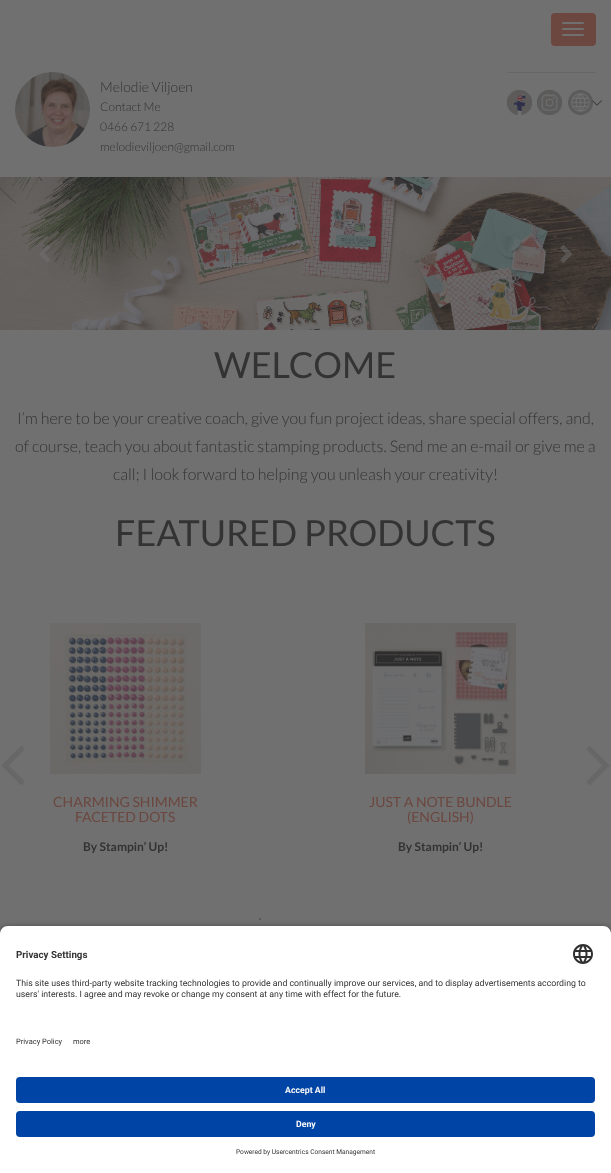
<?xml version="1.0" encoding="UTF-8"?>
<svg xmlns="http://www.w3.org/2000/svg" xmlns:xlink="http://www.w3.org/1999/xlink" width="611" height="1173">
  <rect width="100%" height="100%" fill="#707070" />
  <rect x="551" y="13" width="45" height="33" rx="4" fill="#6c473f" />
  <rect x="562" y="22" width="22" height="2" rx="1" fill="#707070" />
  <rect x="562" y="28" width="22" height="2" rx="1" fill="#707070" />
  <rect x="562" y="34" width="22" height="2" rx="1" fill="#707070" />
  <image x="15" y="72" width="75" height="75" xlink:href="image1.png" />
  <rect x="507" y="72" width="89" height="1" fill="#666666" />
  <image x="514" y="95" width="12" height="16" xlink:href="image5.png" />
  <image x="507" y="90" width="25" height="25" xlink:href="image2.png" />
  <image x="537" y="90" width="25" height="25" xlink:href="image3.png" />
  <image x="592" y="100" width="10" height="6" xlink:href="image6.png" />
  <image x="568" y="90" width="25" height="25" xlink:href="image4.png" />
  <image x="0" y="177" width="611" height="153" xlink:href="image7.png" />
  <path d="M 51 248 l -6 6 l 6 6 l -3.5 3 l -9 -9 l 9 -9.5 z" fill="#707070" fill-opacity="0.5" />
  <path d="M 572.5 254 l -9 9 l -3.5 -3 l 6 -6 l -6 -6 l 3.5 -3.5 z" fill="#707070" fill-opacity="0.5" />
  <image x="1" y="746" width="24" height="39" xlink:href="image8.png" />
  <image x="586" y="746" width="24" height="39" xlink:href="image9.png" />
  <image x="50" y="623" width="151" height="151" xlink:href="image10.png" />
  <image x="365" y="623" width="151" height="151" xlink:href="image11.png" />
  <rect y="929" width="611" height="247" rx="8" fill="#000000" fill-opacity="0.8" filter="blur(3.5px)" />
  <path d="M 8 926 h 595 c 4.5 0 8 3.5 8 8 v 86 h -611 v -86 c 0 -4.5 3.5 -8 8 -8 z" fill="#ffffff" />
  <image x="573" y="944" width="20" height="20" xlink:href="image12.png" />
  <rect y="1020" width="611" height="153" fill="#ffffff" />
  <rect x="16" y="1077" width="579" height="26" rx="4" fill="#0045a5" />
  <rect x="16" y="1111" width="579" height="26" rx="4" fill="#0045a5" />
  <text x="100" y="92" style="font-family: Lato; font-size: 14px; font-weight: 300; fill: #333333">Melodie Viljoen</text>
  <text x="100" y="111" style="font-family: Lato; font-size: 12px; font-weight: 300; fill: #333333">Contact Me</text>
  <text x="100" y="131" style="font-family: Lato; font-size: 12px; font-weight: 300; fill: #333333">0466 671 228</text>
  <text x="100" y="151" style="font-family: Lato; font-size: 12px; font-weight: 300; fill: #333333">melodieviljoen@gmail.com</text>
  <text x="214" y="378" style="font-family: Lato; font-size: 36px; fill: #333333">WELCOME</text>
  <text x="17" y="424" style="font-family: Lato; font-size: 16px; font-weight: 300; fill: #333333">I’m here to be your creative coach, give you fun project ideas, share special offers, and,</text>
  <text x="15" y="452" style="font-family: Lato; font-size: 16px; font-weight: 300; fill: #333333">of course, teach you about fantastic stamping products. Send me an e-mail or give me a</text>
  <text x="113" y="480" style="font-family: Lato; font-size: 16px; font-weight: 300; fill: #333333">call; I look forward to helping you unleash your creativity!</text>
  <text x="115" y="546" style="font-family: Lato; font-size: 36px; fill: #333333">FEATURED PRODUCTS</text>
  <text x="53" y="807" style="font-family: Lato; font-size: 14px; fill: #6c473f">CHARMING SHIMMER</text>
  <text x="75" y="822" style="font-family: Lato; font-size: 14px; fill: #6c473f">FACETED DOTS</text>
  <text x="83" y="851" style="font-family: Lato; font-size: 12px; font-weight: bold; fill: #333333">By Stampin’ Up!</text>
  <text x="369" y="807" style="font-family: Lato; font-size: 14px; fill: #6c473f">JUST A NOTE BUNDLE</text>
  <text x="407" y="822" style="font-family: Lato; font-size: 14px; fill: #6c473f">(ENGLISH)</text>
  <text x="398" y="851" style="font-family: Lato; font-size: 12px; font-weight: bold; fill: #333333">By Stampin’ Up!</text>
  <text x="259" y="921" style="font-family: Liberation Serif; font-size: 6px; fill: #333333">•</text>
  <text x="16" y="958" style="font-family: Roboto; font-size: 9.75px; font-weight: bold; fill: #333333">Privacy Settings</text>
  <text x="16" y="986" style="font-family: Roboto; font-size: 8.75px; fill: #333333">This site uses third-party website tracking technologies to provide and continually improve our services, and to display advertisements according to</text>
  <text x="16" y="997" style="font-family: Roboto; font-size: 8.75px; fill: #333333">users' interests. I agree and may revoke or change my consent at any time with effect for the future.</text>
  <text x="16" y="1044" style="font-family: Roboto; font-size: 7.5px; fill: #333333">Privacy Policy</text>
  <text x="73" y="1044" style="font-family: Roboto; font-size: 7.5px; fill: #333333">more</text>
  <text x="285" y="1093" style="font-family: Roboto; font-size: 8.75px; font-weight: bold; fill: #fafafa">Accept All</text>
  <text x="296" y="1127" style="font-family: Roboto; font-size: 8.75px; font-weight: bold; fill: #fafafa">Deny</text>
  <text x="236" y="1154" style="font-family: Roboto; font-size: 6.6px; fill: #333333">Powered by Usercentrics Consent Management</text>
</svg>
